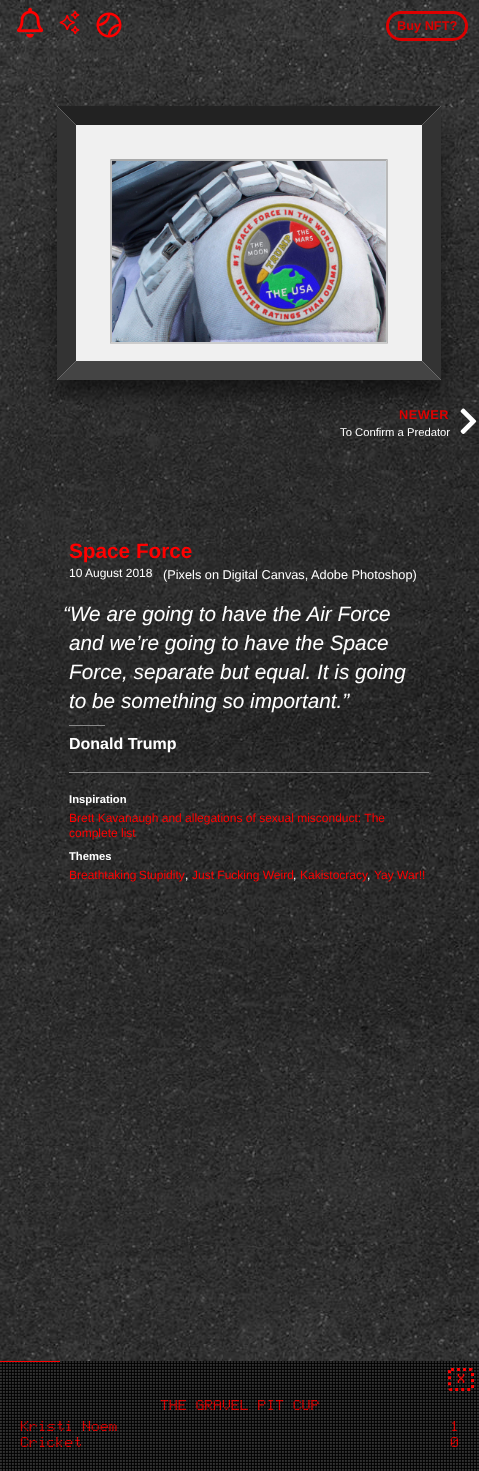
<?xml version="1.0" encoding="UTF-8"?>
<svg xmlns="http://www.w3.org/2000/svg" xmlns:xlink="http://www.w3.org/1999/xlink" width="479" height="1471">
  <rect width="100%" height="100%" fill="#ffffff" />
  <image x="0" y="0" width="479" height="1361" xlink:href="image1.png" />
  <image x="16" y="7" width="28" height="31" xlink:href="image2.png" />
  <image x="59" y="10" width="21" height="25" xlink:href="image3.png" />
  <image x="96" y="12" width="26" height="26" xlink:href="image4.png" />
  <rect x="387.5" y="12.5" width="79" height="27" rx="13.5" fill="none" stroke="#dd0000" stroke-width="3" />
  <rect x="57" y="121" width="384" height="274" fill="#000000" fill-opacity="0.5" filter="blur(10px)" />
  <rect x="57" y="106" width="384" height="274" fill="#f0f0f0" />
  <path d="M 57 106 h 384 l -19 19 h -346 z" fill="#222222" />
  <path d="M 441 106 v 274 l -19 -19 v -236 z" fill="#333333" />
  <path d="M 441 380 h -384 l 19 -19 h 346 z" fill="#444444" />
  <path d="M 57 380 v -274 l 19 19 v 236 z" fill="#333333" />
  <image x="112" y="161" width="274" height="181" xlink:href="image5.png" />
  <path d="M 110 159 h 278 l -2 2 h -274 z" fill="#aaaaaa" />
  <path d="M 388 159 v 185 l -2 -2 v -181 z" fill="#bbbbbb" />
  <path d="M 388 344 h -278 l 2 -2 h 274 z" fill="#cccccc" />
  <path d="M 110 344 v -185 l 2 2 v 181 z" fill="#bbbbbb" />
  <image x="460" y="408" width="17" height="26" xlink:href="image6.png" />
  <rect x="69" y="725" width="36" height="1" fill="#888888" />
  <rect x="69" y="772" width="360" height="1" fill="#888888" />
  <image x="0" y="1361" width="479" height="110" xlink:href="image7.png" />
  <path d="M 451 1369.5 h 20 c 1 0 1.5 0.5 1.5 1.5 v 17 c 0 1 -0.5 1.5 -1.5 1.5 h -20 c -1 0 -1.5 -0.5 -1.5 -1.5 v -17 c 0 -1 0.5 -1.5 1.5 -1.5 z" fill="none" stroke="#ff0000" stroke-width="3" stroke-dasharray="3 3" />
  <rect x="60" y="1361" width="419" height="1" fill="#000000" fill-opacity="0.25" />
  <rect y="1361" width="60" height="1" fill="#ff0000" />
  <text x="397" y="30" style="font-family: Liberation Sans; font-size: 12.75px; font-weight: bold; fill: #dd0000">Buy NFT?</text>
  <text x="399" y="419" style="font-family: Liberation Sans; font-size: 12.75px; font-weight: bold; letter-spacing: 0.5px; fill: #dd0000">NEWER</text>
  <text x="340" y="436" style="font-family: Liberation Sans; font-size: 11.25px; fill: #ffffff">To Confirm a Predator</text>
  <text x="69" y="558" style="font-family: Liberation Sans; font-size: 20.75px; font-weight: bold; fill: #ff0000">Space Force</text>
  <text x="69" y="577" style="font-family: Liberation Sans; font-size: 12px; fill: #ffffff">10 August 2018</text>
  <text x="163" y="579" style="font-family: Liberation Sans; font-size: 12.75px; fill: #ffffff">(Pixels on Digital Canvas, Adobe Photoshop)</text>
  <text x="63" y="621" style="font-family: Liberation Sans; font-size: 20.75px; font-style: italic; fill: #ffffff">“We are going to have the Air Force</text>
  <text x="69" y="650" style="font-family: Liberation Sans; font-size: 20.75px; font-style: italic; fill: #ffffff">and we’re going to have the Space</text>
  <text x="69" y="679" style="font-family: Liberation Sans; font-size: 20.75px; font-style: italic; fill: #ffffff">Force, separate but equal. It is going</text>
  <text x="69" y="708" style="font-family: Liberation Sans; font-size: 20.75px; font-style: italic; fill: #ffffff">to be something so important.”</text>
  <text x="69" y="749" style="font-family: Liberation Sans; font-size: 16px; font-weight: bold; fill: #ffffff">Donald Trump</text>
  <text x="69" y="803" style="font-family: Liberation Sans; font-size: 11.25px; font-weight: bold; fill: #ffffff">Inspiration</text>
  <text x="69" y="822" style="font-family: Liberation Sans; font-size: 12px; fill: #ff0000">Brett Kavanaugh and allegations of sexual misconduct: The</text>
  <text x="69" y="837" style="font-family: Liberation Sans; font-size: 12px; fill: #ff0000">complete list</text>
  <text x="69" y="860" style="font-family: Liberation Sans; font-size: 11.25px; font-weight: bold; fill: #ffffff">Themes</text>
  <text x="69" y="879" word-spacing="-1" style="font-family: Liberation Sans; font-size: 12px; fill: #ff0000">Breathtaking Stupidity</text>
  <text x="185" y="879" style="font-family: Liberation Sans; font-size: 12px; fill: #ffffff">,</text>
  <text x="192" y="879" style="font-family: Liberation Sans; font-size: 12px; fill: #ff0000">Just Fucking Weird</text>
  <text x="293" y="879" style="font-family: Liberation Sans; font-size: 12px; fill: #ffffff">,</text>
  <text x="300" y="879" style="font-family: Liberation Sans; font-size: 12px; fill: #ff0000">Kakistocracy</text>
  <text x="374" y="879" style="font-family: Liberation Sans; font-size: 12px; fill: #ff0000">Yay War!!</text>
  <text x="367" y="879" style="font-family: Liberation Sans; font-size: 12px; fill: #ffffff">,</text>
  <text x="457" y="1383" style="font-family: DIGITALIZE; font-size: 12.75px; font-weight: bold; fill: #ff0000">X</text>
  <text x="160" y="1410" style="font-family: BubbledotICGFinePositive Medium; font-size: 16px; font-weight: 500; fill: #ff0000">THE GRAVEL PIT CUP</text>
  <text x="20" y="1431" style="font-family: BubbledotICGFinePositive Medium; font-size: 16px; font-weight: 500; fill: #ff0000">Kristi Noem</text>
  <text x="450" y="1431" style="font-family: BubbledotICGFinePositive Medium; font-size: 16px; font-weight: 500; fill: #ff0000">1</text>
  <text x="20" y="1447" style="font-family: BubbledotICGFinePositive Medium; font-size: 16px; font-weight: 500; fill: #ff0000">Cricket</text>
  <text x="450" y="1447" style="font-family: BubbledotICGFinePositive Medium; font-size: 16px; font-weight: 500; fill: #ff0000">0</text>
</svg>
